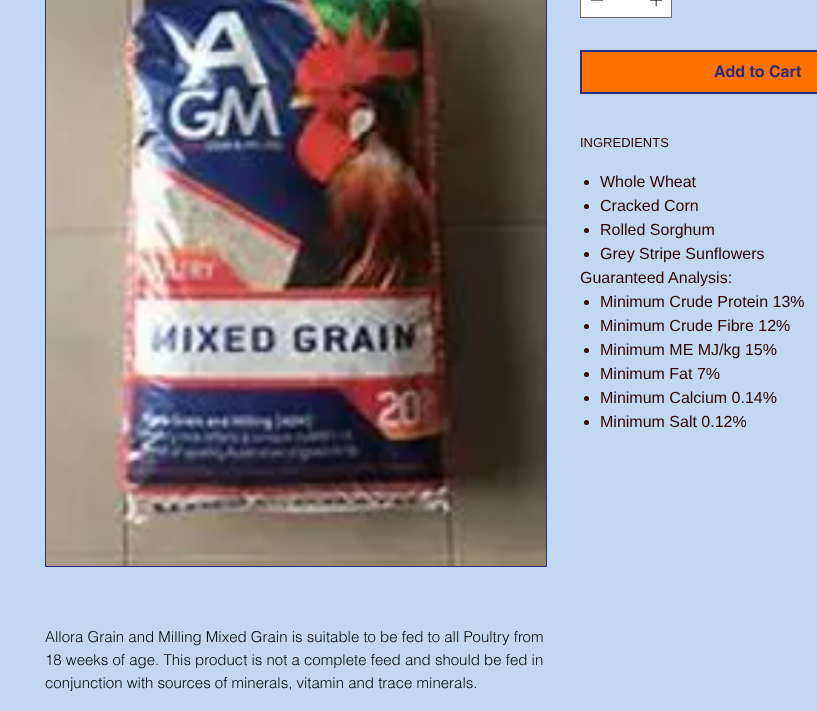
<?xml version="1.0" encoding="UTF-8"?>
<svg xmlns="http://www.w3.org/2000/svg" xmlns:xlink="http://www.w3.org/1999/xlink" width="817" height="711">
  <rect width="100%" height="100%" fill="#c2d8f2" />
  <rect x="580.5" y="-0.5" width="91" height="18" fill="#ffffff" stroke="#836666" />
  <path d="M 603 0 v 0.5 h -12 v -0.5 z" fill="#000000" fill-rule="evenodd" />
  <image x="650" y="0" width="13" height="7" xlink:href="image1.png" />
  <rect x="581" y="51" width="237" height="42" fill="#ff7200" stroke="#2a2c7e" stroke-width="2" />
  <circle cx="586.5" cy="182.5" r="2.5" fill="#310000" />
  <circle cx="586.5" cy="206.5" r="2.5" fill="#310000" />
  <circle cx="586.5" cy="230.5" r="2.5" fill="#310000" />
  <circle cx="586.5" cy="254.5" r="2.5" fill="#310000" />
  <circle cx="586.5" cy="302.5" r="2.5" fill="#310000" />
  <circle cx="586.5" cy="326.5" r="2.5" fill="#310000" />
  <circle cx="586.5" cy="350.5" r="2.5" fill="#310000" />
  <circle cx="586.5" cy="374.5" r="2.5" fill="#310000" />
  <circle cx="586.5" cy="398.5" r="2.5" fill="#310000" />
  <circle cx="586.5" cy="422.5" r="2.5" fill="#310000" />
  <rect x="45.5" y="-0.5" width="501" height="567" fill="none" stroke="#2a2c7e" />
  <image x="46" y="0" width="500" height="566" xlink:href="image2.png" />
  <text x="714" y="77" style="font-family: helvetica; font-size: 16px; font-weight: bold; fill: #2a2c7e">Add to Cart</text>
  <text x="580" y="147" style="font-family: Liberation Sans; font-size: 13px; fill: #310000">INGREDIENTS</text>
  <text x="600" y="187" style="font-family: Liberation Sans; font-size: 16px; fill: #310000">Whole Wheat</text>
  <text x="600" y="211" style="font-family: Liberation Sans; font-size: 16px; fill: #310000">Cracked Corn</text>
  <text x="600" y="235" style="font-family: Liberation Sans; font-size: 16px; fill: #310000">Rolled Sorghum</text>
  <text x="600" y="259" style="font-family: Liberation Sans; font-size: 16px; fill: #310000">Grey Stripe Sunflowers</text>
  <text x="580" y="283" style="font-family: Liberation Sans; font-size: 16px; fill: #310000">Guaranteed Analysis:</text>
  <text x="600" y="307" style="font-family: Liberation Sans; font-size: 16px; fill: #310000">Minimum Crude Protein 13%</text>
  <text x="600" y="331" style="font-family: Liberation Sans; font-size: 16px; fill: #310000">Minimum Crude Fibre 12%</text>
  <text x="600" y="355" style="font-family: Liberation Sans; font-size: 16px; fill: #310000">Minimum ME MJ/kg 15%</text>
  <text x="600" y="379" style="font-family: Liberation Sans; font-size: 16px; fill: #310000">Minimum Fat 7%</text>
  <text x="600" y="403" style="font-family: Liberation Sans; font-size: 16px; fill: #310000">Minimum Calcium 0.14%</text>
  <text x="600" y="427" style="font-family: Liberation Sans; font-size: 16px; fill: #310000">Minimum Salt 0.12%</text>
  <text x="45" y="642" style="font-family: helvetica; font-size: 15px; font-weight: 300; fill: #000000">Allora Grain and Milling Mixed Grain is suitable to be fed to all Poultry from</text>
  <text x="45" y="665" style="font-family: helvetica; font-size: 15px; font-weight: 300; fill: #000000">18 weeks of age. This product is not a complete feed and should be fed in</text>
  <text x="45" y="688" style="font-family: helvetica; font-size: 15px; font-weight: 300; fill: #000000">conjunction with sources of minerals, vitamin and trace minerals.</text>
</svg>
